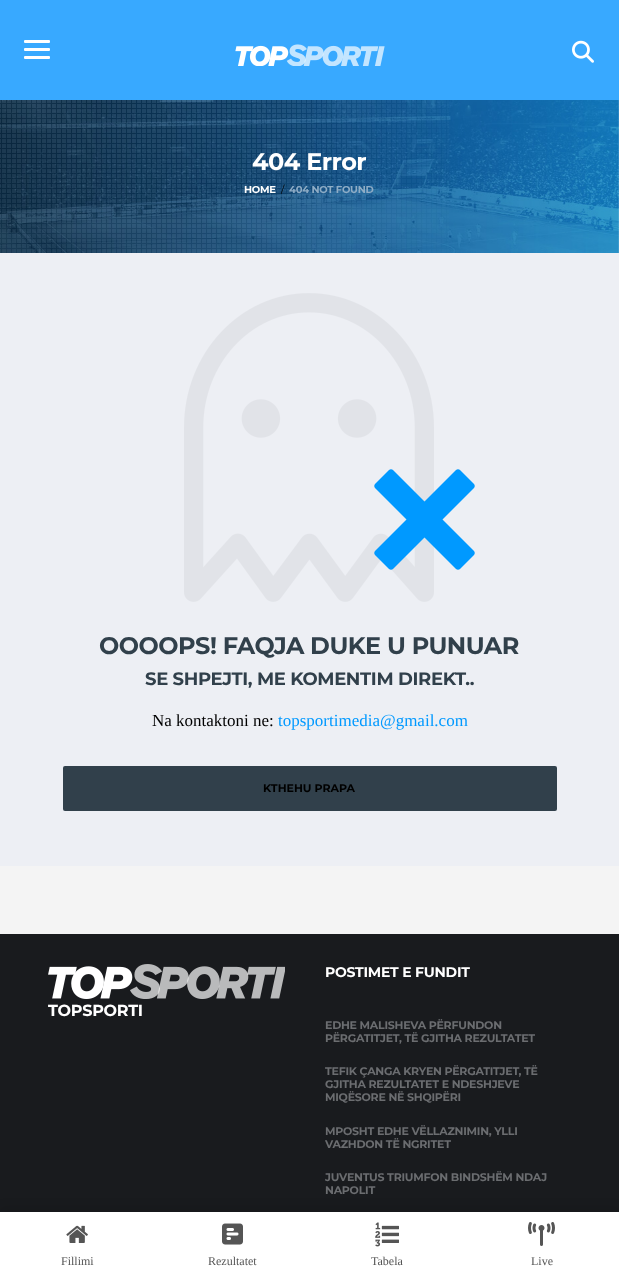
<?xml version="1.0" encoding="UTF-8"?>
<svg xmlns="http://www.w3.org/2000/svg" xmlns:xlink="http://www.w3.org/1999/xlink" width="619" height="1282">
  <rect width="100%" height="100%" fill="#edeff4" />
  <rect width="619" height="100" fill="#38a9ff" />
  <rect x="24" y="40" width="26" height="3" rx="1" fill="#ffffff" />
  <rect x="24" y="48" width="26" height="3" rx="1" fill="#ffffff" />
  <rect x="24" y="56" width="26" height="3" rx="1" fill="#ffffff" />
  <image x="572" y="40" width="22" height="23" xlink:href="image1.png" />
  <image x="235" y="44" width="150" height="22" xlink:href="image2.png" />
  <image x="0" y="100" width="619" height="153" xlink:href="image3.png" />
  <image x="0" y="100" width="449" height="153" xlink:href="image4.png" />
  <image x="184" y="293" width="250" height="309" xlink:href="image5.png" />
  <path d="M 393 470 l 81 81 c 1 1 1 3 0 4 l -14 14 c -1 1 -3 1 -4 0 l -81 -81 c -1 -1 -1 -3 0 -4 l 14 -14 c 1 -1 3 -1 4 0 z" fill="#0099ff" />
  <path d="M 375 551 l 81 -81 c 1 -1 3 -1 4 0 l 14 14 c 1 1 1 3 0 4 l -81 81 c -1 1 -3 1 -4 0 l -14 -14 c -1 -1 -1 -3 0 -4 z" fill="#0099ff" />
  <rect x="63" y="766" width="494" height="45" rx="2" fill="#31404b" />
  <rect y="866" width="619" height="68" fill="#f4f4f4" />
  <rect y="934" width="619" height="278" fill="#191b1e" />
  <image x="48" y="964" width="237" height="35" xlink:href="image6.png" />
  <rect y="1207" width="619" height="70" fill="#000000" fill-opacity="0.1" filter="blur(5px)" />
  <rect y="1212" width="619" height="70" fill="#ffffff" />
  <image x="66" y="1225" width="22" height="18" xlink:href="image7.png" />
  <image x="222" y="1223" width="21" height="22" xlink:href="image8.png" />
  <image x="375" y="1222" width="24" height="25" xlink:href="image9.png" />
  <image x="528" y="1222" width="27" height="24" xlink:href="image10.png" />
  <text x="252" y="170" style="font-family: Montserrat; font-size: 24px; font-weight: bold; letter-spacing: -0.5px; fill: #ffffff">404 Error</text>
  <text x="244" y="193" style="font-family: Montserrat; font-size: 10px; font-weight: bold; letter-spacing: -0.25px; fill: #ffffff">HOME</text>
  <text x="281" y="193" style="font-family: Montserrat; font-size: 10px; letter-spacing: -0.25px; fill: #000000">/</text>
  <text x="289" y="193" style="font-family: Montserrat; font-size: 10px; font-weight: bold; letter-spacing: -0.25px; fill: #8fadc6">404 NOT FOUND</text>
  <text x="99" y="654" style="font-family: Montserrat; font-size: 24px; font-weight: bold; letter-spacing: -0.5px; fill: #31404b">OOOOPS! FAQJA DUKE U PUNUAR</text>
  <text x="145" y="685" style="font-family: Montserrat; font-size: 18px; font-weight: bold; letter-spacing: -0.35px; fill: #31404b">SE SHPEJTI, ME KOMENTIM DIREKT..</text>
  <text x="152" y="726" style="font-family: Liberation Serif; font-size: 17px; fill: #000000">Na kontaktoni ne:</text>
  <text x="278" y="726" style="font-family: Liberation Serif; font-size: 17px; fill: #0099ff">topsportimedia@gmail.com</text>
  <text x="263" y="792" style="font-family: Montserrat; font-size: 11px; font-weight: bold; fill: #000000">KTHEHU PRAPA</text>
  <text x="48" y="1016" style="font-family: Montserrat; font-size: 16px; font-weight: bold; letter-spacing: -0.25px; fill: #ffffff">TOPSPORTI</text>
  <text x="325" y="977" style="font-family: Montserrat; font-size: 14px; font-weight: bold; letter-spacing: -0.25px; fill: #ffffff">POSTIMET E FUNDIT</text>
  <text x="325" y="1029" style="font-family: Montserrat; font-size: 11px; font-weight: bold; letter-spacing: -0.25px; fill: #6b6d70">EDHE MALISHEVA PËRFUNDON</text>
  <text x="325" y="1042" style="font-family: Montserrat; font-size: 11px; font-weight: bold; letter-spacing: -0.25px; fill: #6b6d70">PËRGATITJET, TË GJITHA REZULTATET</text>
  <text x="325" y="1075" style="font-family: Montserrat; font-size: 11px; font-weight: bold; letter-spacing: -0.25px; fill: #6b6d70">TEFIK ÇANGA KRYEN PËRGATITJET, TË</text>
  <text x="325" y="1088" style="font-family: Montserrat; font-size: 11px; font-weight: bold; letter-spacing: -0.25px; fill: #6b6d70">GJITHA REZULTATET E NDESHJEVE</text>
  <text x="325" y="1101" style="font-family: Montserrat; font-size: 11px; font-weight: bold; letter-spacing: -0.25px; fill: #6b6d70">MIQËSORE NË SHQIPËRI</text>
  <text x="325" y="1135" style="font-family: Montserrat; font-size: 11px; font-weight: bold; letter-spacing: -0.25px; fill: #6b6d70">MPOSHT EDHE VËLLAZNIMIN, YLLI</text>
  <text x="325" y="1148" style="font-family: Montserrat; font-size: 11px; font-weight: bold; letter-spacing: -0.25px; fill: #6b6d70">VAZHDON TË NGRITET</text>
  <text x="325" y="1181" style="font-family: Montserrat; font-size: 11px; font-weight: bold; letter-spacing: -0.25px; fill: #6b6d70">JUVENTUS TRIUMFON BINDSHËM NDAJ</text>
  <text x="325" y="1194" style="font-family: Montserrat; font-size: 11px; font-weight: bold; letter-spacing: -0.25px; fill: #6b6d70">NAPOLIT</text>
  <text x="61" y="1265" style="font-family: Liberation Serif; font-size: 12px; fill: #555555">Fillimi</text>
  <text x="208" y="1265" style="font-family: Liberation Serif; font-size: 12px; fill: #555555">Rezultatet</text>
  <text x="371" y="1265" style="font-family: Liberation Serif; font-size: 12px; fill: #555555">Tabela</text>
  <text x="531" y="1265" style="font-family: Liberation Serif; font-size: 12px; fill: #555555">Live</text>
</svg>
